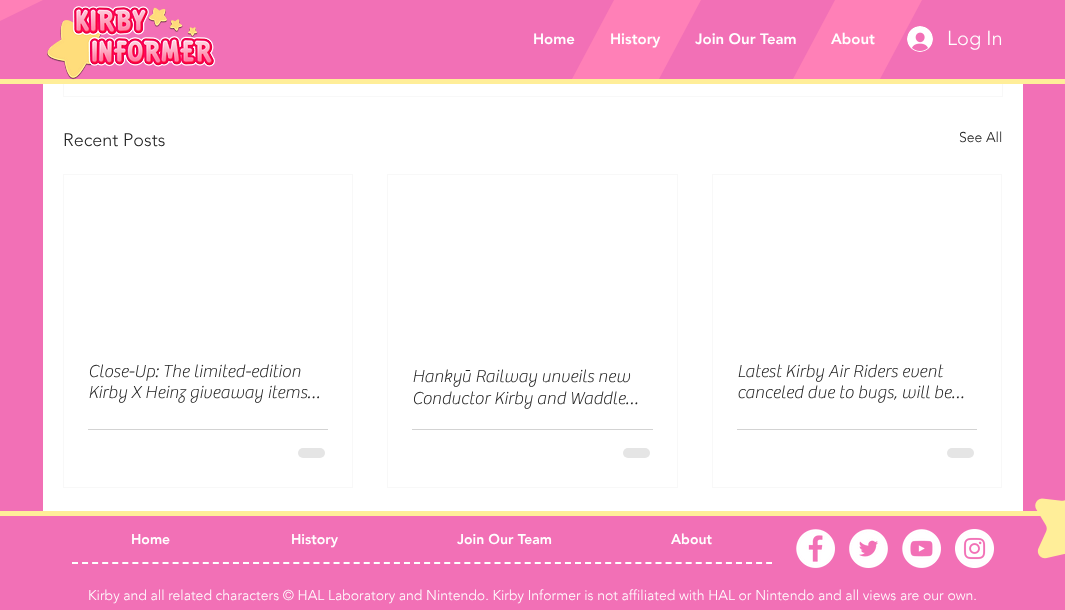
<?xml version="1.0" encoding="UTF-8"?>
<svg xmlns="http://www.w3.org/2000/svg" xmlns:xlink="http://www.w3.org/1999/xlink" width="1065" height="610">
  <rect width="100%" height="100%" fill="#f270b6" />
  <rect x="43" y="84" width="980" height="427" fill="#ffffff" />
  <rect x="63.5" y="-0.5" width="939" height="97" fill="none" stroke="#f8f8f8" />
  <rect x="63" width="940" height="79" fill="#f270b6" />
  <rect y="79" width="1065" height="5" fill="#ffee99" />
  <path d="M -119 79 h -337 l 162 -79 h 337 z" fill="#ff80b7" />
  <image x="47" y="6" width="169" height="74" xlink:href="image1.png" />
  <path d="M 659 79 h -87 l 42 -79 h 87 z" fill="#ff80b7" />
  <path d="M 880 79 h -87 l 42 -79 h 87 z" fill="#ff80b7" />
  <image x="907" y="26" width="26" height="26" xlink:href="image2.png" />
  <rect x="63.5" y="174.5" width="289" height="313" fill="none" stroke="#f8f8f8" />
  <rect x="88" y="429" width="240" height="1" fill="#d3d3d3" />
  <rect x="298" y="448" width="27" height="10" rx="5" fill="#e5e5e5" />
  <rect x="387.5" y="174.5" width="290" height="313" fill="none" stroke="#f8f8f8" />
  <rect x="412" y="429" width="241" height="1" fill="#d3d3d3" />
  <rect x="623" y="448" width="27" height="10" rx="5" fill="#e5e5e5" />
  <rect x="712.5" y="174.5" width="289" height="313" fill="none" stroke="#f8f8f8" />
  <rect x="737" y="429" width="240" height="1" fill="#d3d3d3" />
  <rect x="947" y="448" width="27" height="10" rx="5" fill="#e5e5e5" />
  <rect y="511" width="1041" height="5" fill="#ffee99" />
  <image x="796" y="529" width="39" height="39" xlink:href="image3.png" />
  <image x="849" y="529" width="39" height="39" xlink:href="image4.png" />
  <image x="902" y="529" width="39" height="39" xlink:href="image5.png" />
  <image x="955" y="529" width="39" height="39" xlink:href="image6.png" />
  <image x="1035" y="498" width="30" height="61" xlink:href="image7.png" />
  <path d="M 72 563 h 700" fill="none" stroke="#ffffff" stroke-width="2" stroke-dasharray="6 4.06" />
  <text x="947" y="45" style="font-family: 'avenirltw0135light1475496'; font-size: 20px; font-weight: 300; fill: #ffffff">Log In</text>
  <text x="533" y="44" style="font-family: 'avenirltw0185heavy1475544'; font-size: 15px; font-weight: 900; fill: #ffffff">Home</text>
  <text x="610" y="44" style="font-family: 'avenirltw0185heavy1475544'; font-size: 15px; font-weight: 900; fill: #ffffff">History</text>
  <text x="695" y="44" style="font-family: 'avenirltw0185heavy1475544'; font-size: 15px; font-weight: 900; fill: #ffffff">Join Our Team</text>
  <text x="831" y="44" style="font-family: 'avenirltw0185heavy1475544'; font-size: 15px; font-weight: 900; fill: #ffffff">About</text>
  <text x="63" y="146" style="font-family: 'avenirltw0135light1475496'; font-size: 18px; font-weight: 300; fill: #232323">Recent Posts</text>
  <text x="959" y="142" style="font-family: 'avenirltw0135light1475496'; font-size: 14px; font-weight: 300; fill: #232323">See All</text>
  <text x="88" y="377" style="font-family: 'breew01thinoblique'; font-size: 18px; font-weight: 100; fill: #232323">Close-Up: The limited-edition</text>
  <text x="88" y="398" style="font-family: 'breew01thinoblique'; font-size: 18px; font-weight: 100; fill: #232323">Kirby X Heinz giveaway items…</text>
  <text x="412" y="382" style="font-family: 'breew01thinoblique'; font-size: 18px; font-weight: 100; fill: #232323">Hanky</text>
  <text x="462" y="382" style="font-family: 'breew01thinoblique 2'; font-size: 18px; font-weight: 100; fill: #232323">ū</text>
  <text x="475" y="382" style="font-family: 'breew01thinoblique'; font-size: 18px; font-weight: 100; fill: #232323">Railway unveils new</text>
  <text x="412" y="404" style="font-family: 'breew01thinoblique'; font-size: 18px; font-weight: 100; fill: #232323">Conductor Kirby and Waddle…</text>
  <text x="737" y="377" style="font-family: 'breew01thinoblique'; font-size: 18px; font-weight: 100; fill: #232323">Latest Kirby Air Riders event</text>
  <text x="737" y="398" style="font-family: 'breew01thinoblique'; font-size: 18px; font-weight: 100; fill: #232323">canceled due to bugs, will be…</text>
  <text x="131" y="544" style="font-family: 'avenirltw0185heavy1475544'; font-size: 14px; font-weight: 900; fill: #ffffff">Home</text>
  <text x="291" y="544" style="font-family: 'avenirltw0185heavy1475544'; font-size: 14px; font-weight: 900; fill: #ffffff">History</text>
  <text x="457" y="544" style="font-family: 'avenirltw0185heavy1475544'; font-size: 14px; font-weight: 900; fill: #ffffff">Join Our Team</text>
  <text x="671" y="544" style="font-family: 'avenirltw0185heavy1475544'; font-size: 14px; font-weight: 900; fill: #ffffff">About</text>
  <text x="88" y="600" style="font-family: 'avenirltw0135light1475496'; font-size: 14px; font-weight: 300; fill: #ffffff">Kirby and all related characters © HAL Laboratory and Nintendo. Kirby Informer is not affiliated with HAL or Nintendo and all views are our own.</text>
</svg>
